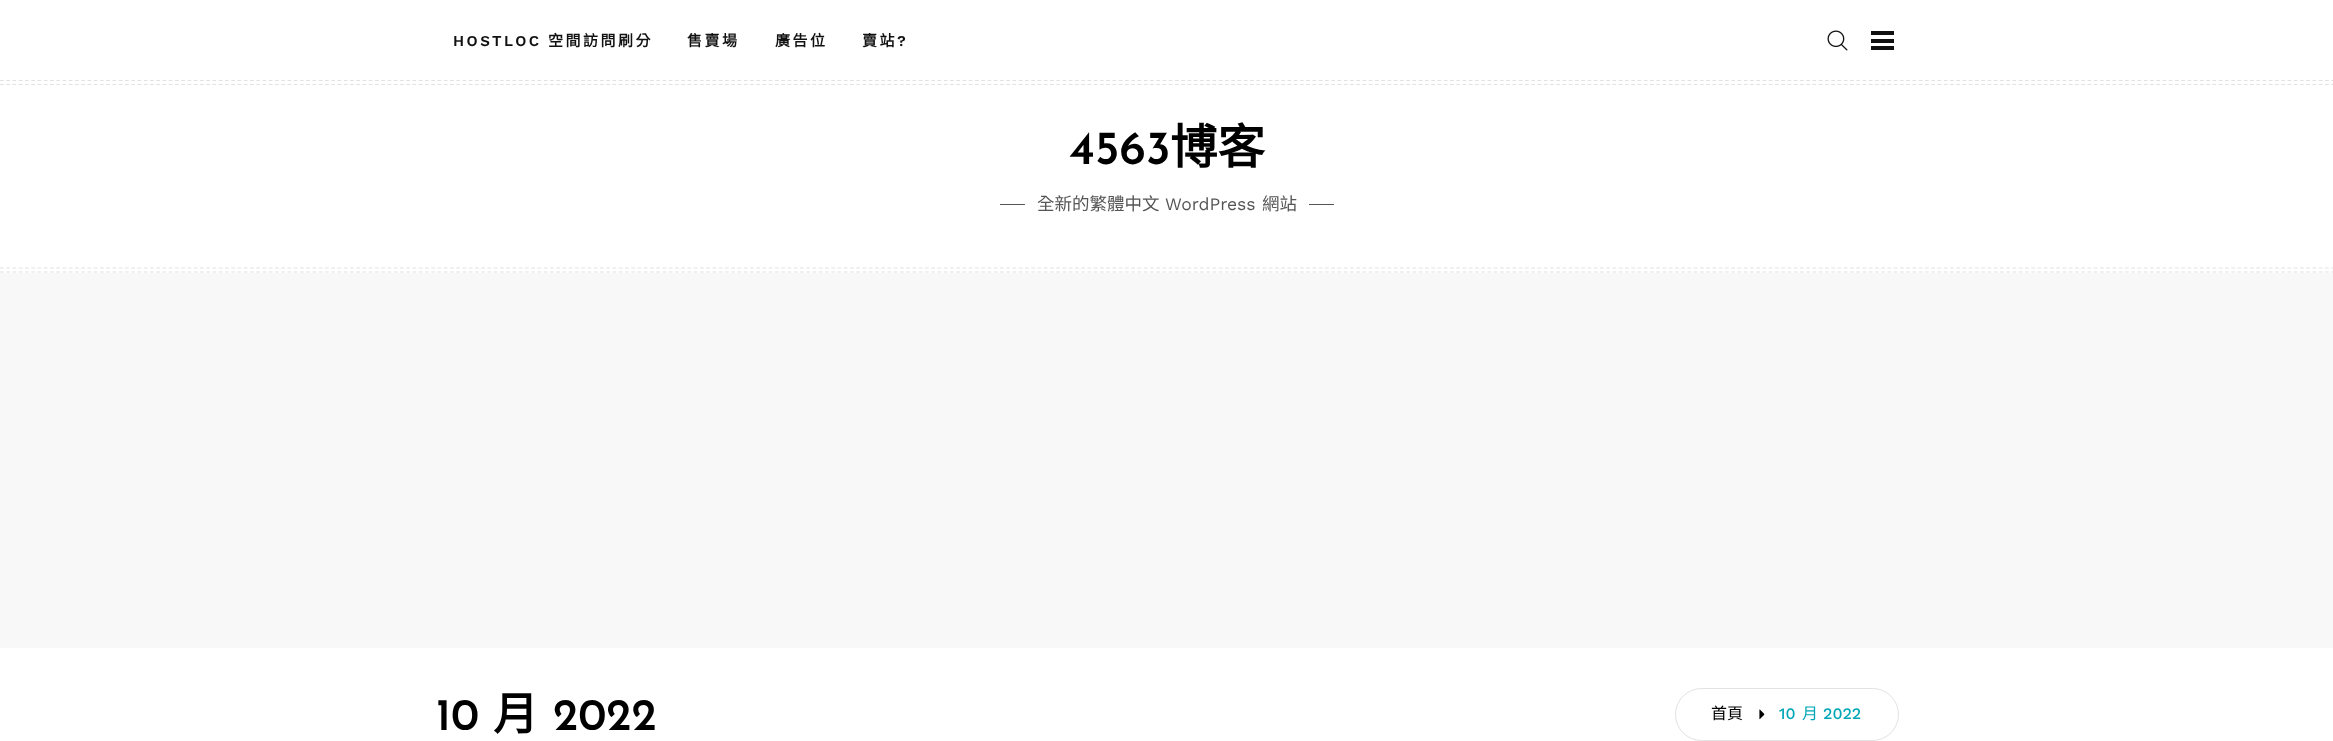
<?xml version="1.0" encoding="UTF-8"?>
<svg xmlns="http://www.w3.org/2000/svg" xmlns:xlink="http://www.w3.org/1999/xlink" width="2333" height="741">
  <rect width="100%" height="100%" fill="#f8f8f8" />
  <rect width="2333" height="273" fill="#ffffff" />
  <path d="M 0 84.5 h 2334" fill="none" stroke="#e2e2e2" stroke-width="1.2" stroke-dasharray="3.75 2.5" />
  <image x="1827" y="30" width="21" height="21" xlink:href="image1.png" />
  <rect x="1871" y="31" width="23" height="4" fill="#111111" />
  <rect x="1871" y="39" width="23" height="4" fill="#111111" />
  <rect x="1871" y="46" width="23" height="4" fill="#111111" />
  <path d="M 0 80.5 h 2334" fill="none" stroke="#e2e2e2" stroke-width="1.2" stroke-dasharray="3.75 2.5" />
  <path d="M 0 272 h 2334" fill="none" stroke="#e2e2e2" stroke-width="1.2" stroke-dasharray="3.75 2.5" />
  <rect x="1000" y="204" width="25" height="1" fill="#555555" />
  <rect x="1309" y="204" width="25" height="1" fill="#555555" />
  <path d="M 0 268 h 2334" fill="none" stroke="#e2e2e2" stroke-width="1.2" stroke-dasharray="3.75 2.5" />
  <rect y="648" width="2333" height="93" fill="#ffffff" />
  <rect x="1675.5" y="688.5" width="223" height="52" rx="26" fill="none" stroke="#e2e2e2" />
  <image x="1759" y="709" width="6" height="11" xlink:href="image2.png" />
  <text x="453" y="46" style="font-family: Work Sans; font-size: 15px; font-weight: 600; letter-spacing: 2.5px; fill: #111111">HOSTLOC</text>
  <text x="548" y="46" style="font-family: Noto Sans CJK TC; font-size: 15px; font-weight: bold; letter-spacing: 2.5px; fill: #111111">空間訪問刷分</text>
  <text x="687" y="46" style="font-family: Noto Sans CJK TC; font-size: 15px; font-weight: bold; letter-spacing: 2.5px; fill: #111111">售賣場</text>
  <text x="775" y="46" style="font-family: Noto Sans CJK TC; font-size: 15px; font-weight: bold; letter-spacing: 2.5px; fill: #111111">廣告位</text>
  <text x="862" y="46" style="font-family: Noto Sans CJK TC; font-size: 15px; font-weight: bold; letter-spacing: 2.5px; fill: #111111">賣站</text>
  <text x="897" y="46" style="font-family: Work Sans; font-size: 15px; font-weight: 600; letter-spacing: 2.5px; fill: #111111">?</text>
  <text x="1069" y="164" style="font-family: Josefin Sans; font-size: 47.5px; font-weight: 600; fill: #000000">4563</text>
  <text x="1170" y="164" style="font-family: Noto Sans CJK TC; font-size: 47.5px; font-weight: bold; fill: #000000">博客</text>
  <text x="1037" y="210" style="font-family: Noto Sans CJK TC; font-size: 17.5px; fill: #555555">全新的繁體中文</text>
  <text x="1165" y="210" style="font-family: Work Sans; font-size: 17.5px; fill: #555555">WordPress</text>
  <text x="1262" y="210" style="font-family: Noto Sans CJK TC; font-size: 17.5px; fill: #555555">網站</text>
  <text x="436" y="730" style="font-family: Josefin Sans; font-size: 45px; font-weight: 600; fill: #000000">10</text>
  <text x="493" y="730" style="font-family: Noto Sans CJK TC; font-size: 45px; font-weight: bold; fill: #000000">月</text>
  <text x="553" y="730" style="font-family: Josefin Sans; font-size: 45px; font-weight: 600; fill: #000000">2022</text>
  <text x="1711" y="719" style="font-family: Noto Sans CJK TC; font-size: 16px; fill: #000000">首頁</text>
  <text x="1779" y="719" style="font-family: Work Sans; font-size: 16px; font-weight: 500; fill: #00a6b6">10</text>
  <text x="1802" y="719" style="font-family: Noto Sans CJK TC; font-size: 16px; fill: #00a6b6">月</text>
  <text x="1823" y="719" style="font-family: Work Sans; font-size: 16px; font-weight: 500; fill: #00a6b6">2022</text>
</svg>
